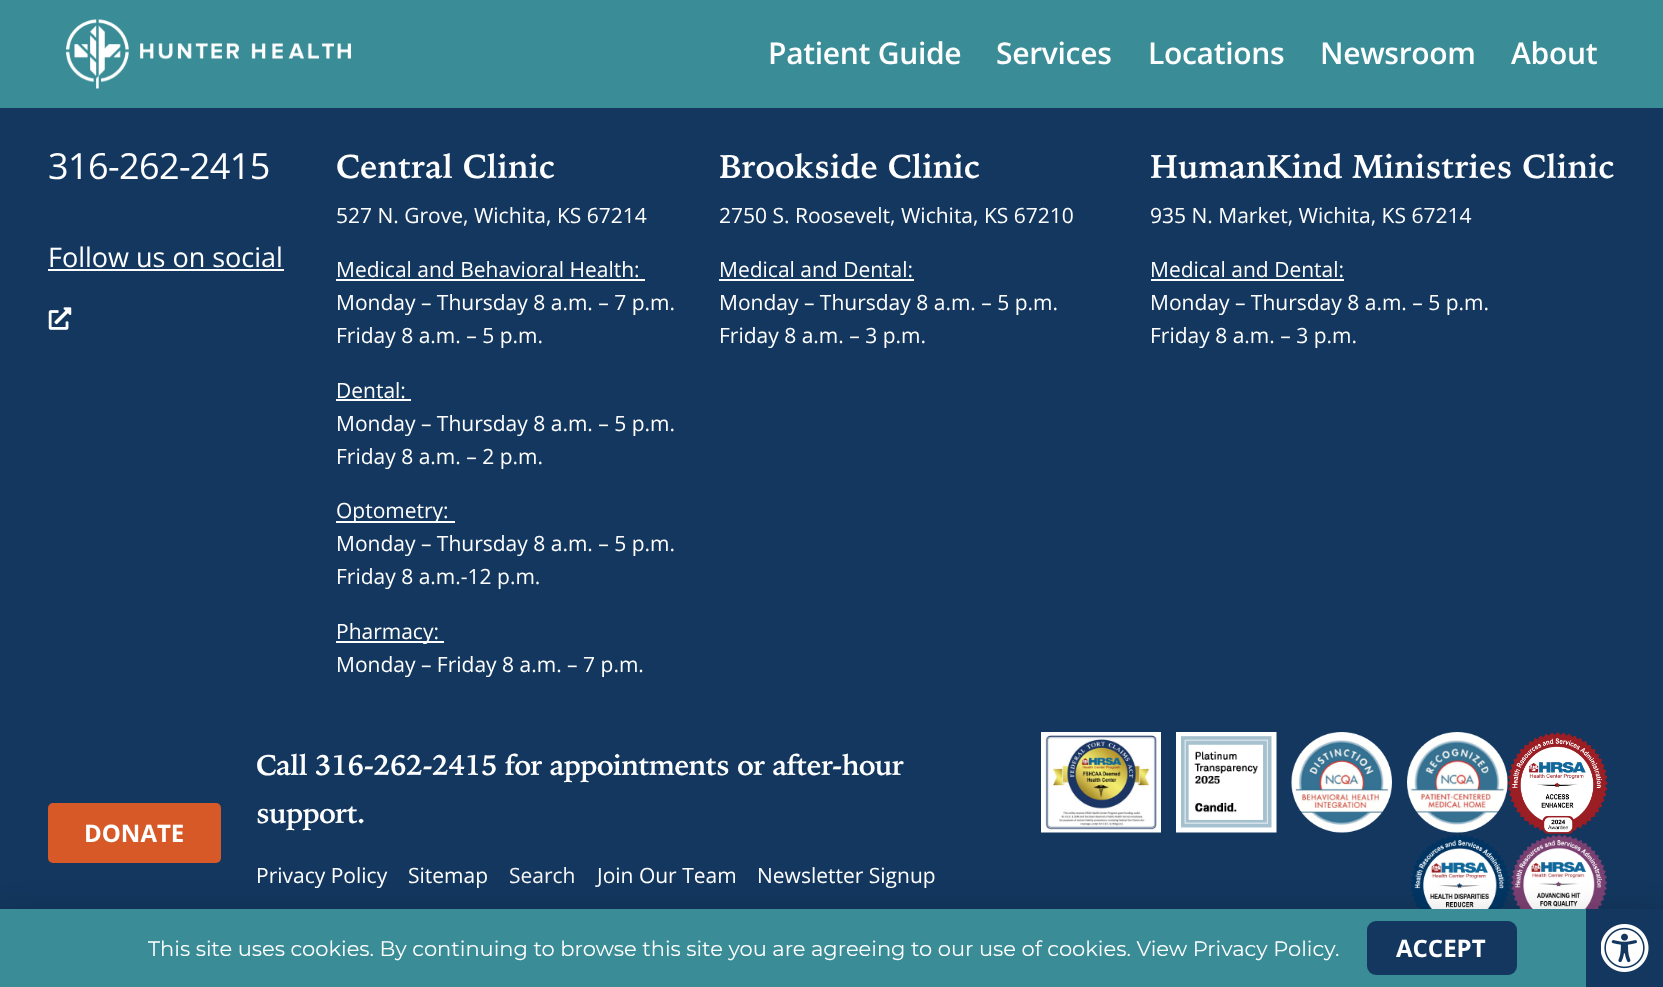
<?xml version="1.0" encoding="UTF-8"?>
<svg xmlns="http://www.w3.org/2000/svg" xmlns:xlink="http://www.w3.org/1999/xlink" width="1663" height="987">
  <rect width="100%" height="100%" fill="#13375e" />
  <rect width="1663" height="108" fill="#3a8c96" />
  <image x="66" y="19" width="285" height="70" xlink:href="image1.png" />
  <rect x="48" y="269" width="236" height="2" fill="#ffffff" />
  <image x="48" y="307" width="24" height="23" xlink:href="image2.png" />
  <rect x="336" y="279" width="309" height="2" fill="#ffffff" />
  <rect x="336" y="399" width="75" height="2" fill="#ffffff" />
  <rect x="336" y="521" width="119" height="2" fill="#ffffff" />
  <rect x="336" y="641" width="108" height="2" fill="#ffffff" />
  <rect x="719" y="279" width="195" height="2" fill="#ffffff" />
  <rect x="1151" y="279" width="193" height="2" fill="#ffffff" />
  <rect x="48" y="803" width="173" height="60" rx="5" fill="#d75927" />
  <image x="1041" y="732" width="120" height="101" xlink:href="image3.png" />
  <image x="1176" y="732" width="101" height="101" xlink:href="image4.png" />
  <image x="1291" y="732" width="101" height="101" xlink:href="image5.png" />
  <image x="1407" y="732" width="101" height="101" xlink:href="image6.png" />
  <image x="1507" y="732" width="101" height="102" xlink:href="image7.png" />
  <image x="1411" y="835" width="99" height="74" xlink:href="image8.png" />
  <image x="1511" y="834" width="97" height="75" xlink:href="image9.png" />
  <rect x="-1" y="917" width="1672" height="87" fill="#000000" fill-opacity="0.2" filter="blur(17px)" />
  <rect y="909" width="1586" height="78" fill="#3a8c96" />
  <rect x="1367" y="921" width="150" height="54" rx="9" fill="#13375e" />
  <rect x="1586" y="909" width="77" height="78" fill="#13375e" />
  <image x="1601" y="924" width="48" height="48" xlink:href="image10.png" />
  <text x="768" y="64" style="font-family: Open Sans; font-size: 30px; font-weight: 600; letter-spacing: -0.3px; fill: #ffffff">Patient Guide</text>
  <text x="996" y="64" style="font-family: Open Sans; font-size: 30px; font-weight: 600; letter-spacing: -0.3px; fill: #ffffff">Services</text>
  <text x="1148" y="64" style="font-family: Open Sans; font-size: 30px; font-weight: 600; letter-spacing: -0.3px; fill: #ffffff">Locations</text>
  <text x="1320" y="64" style="font-family: Open Sans; font-size: 30px; font-weight: 600; letter-spacing: -0.3px; fill: #ffffff">Newsroom</text>
  <text x="1511" y="64" style="font-family: Open Sans; font-size: 30px; font-weight: 600; letter-spacing: -0.3px; fill: #ffffff">About</text>
  <text x="48" y="179" style="font-family: Open Sans; font-size: 36px; letter-spacing: -0.6px; fill: #ffffff">316-262-2415</text>
  <text x="48" y="267" style="font-family: Open Sans; font-size: 27px; fill: #ffffff">Follow us on social</text>
  <text x="336" y="178" style="font-family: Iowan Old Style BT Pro; font-size: 33px; font-weight: bold; fill: #ffffff">Central Clinic</text>
  <text x="336" y="223" style="font-family: Open Sans; font-size: 21px; fill: #ffffff">527 N. Grove, Wichita, KS 67214</text>
  <text x="336" y="277" style="font-family: Open Sans; font-size: 21px; fill: #ffffff">Medical and Behavioral Health:</text>
  <text x="336" y="310" style="font-family: Open Sans; font-size: 21px; fill: #ffffff">Monday – Thursday 8 a.m. – 7 p.m.</text>
  <text x="336" y="343" style="font-family: Open Sans; font-size: 21px; fill: #ffffff">Friday 8 a.m. – 5 p.m.</text>
  <text x="336" y="398" style="font-family: Open Sans; font-size: 21px; fill: #ffffff">Dental:</text>
  <text x="336" y="431" style="font-family: Open Sans; font-size: 21px; fill: #ffffff">Monday – Thursday 8 a.m. – 5 p.m.</text>
  <text x="336" y="464" style="font-family: Open Sans; font-size: 21px; fill: #ffffff">Friday 8 a.m. – 2 p.m.</text>
  <text x="336" y="518" style="font-family: Open Sans; font-size: 21px; fill: #ffffff">Optometry:</text>
  <text x="336" y="551" style="font-family: Open Sans; font-size: 21px; fill: #ffffff">Monday – Thursday 8 a.m. – 5 p.m.</text>
  <text x="336" y="584" style="font-family: Open Sans; font-size: 21px; fill: #ffffff">Friday 8 a.m.-12 p.m.</text>
  <text x="336" y="639" style="font-family: Open Sans; font-size: 21px; fill: #ffffff">Pharmacy:</text>
  <text x="336" y="672" style="font-family: Open Sans; font-size: 21px; fill: #ffffff">Monday – Friday 8 a.m. – 7 p.m.</text>
  <text x="719" y="178" style="font-family: Iowan Old Style BT Pro; font-size: 33px; font-weight: bold; fill: #ffffff">Brookside Clinic</text>
  <text x="719" y="223" style="font-family: Open Sans; font-size: 21px; fill: #ffffff">2750 S. Roosevelt, Wichita, KS 67210</text>
  <text x="719" y="277" style="font-family: Open Sans; font-size: 21px; fill: #ffffff">Medical and Dental:</text>
  <text x="719" y="310" style="font-family: Open Sans; font-size: 21px; fill: #ffffff">Monday – Thursday 8 a.m. – 5 p.m.</text>
  <text x="719" y="343" style="font-family: Open Sans; font-size: 21px; fill: #ffffff">Friday 8 a.m. – 3 p.m.</text>
  <text x="1150" y="178" style="font-family: Iowan Old Style BT Pro; font-size: 33px; font-weight: bold; fill: #ffffff">HumanKind Ministries Clinic</text>
  <text x="1150" y="223" style="font-family: Open Sans; font-size: 21px; fill: #ffffff">935 N. Market, Wichita, KS 67214</text>
  <text x="1150" y="277" style="font-family: Open Sans; font-size: 21px; fill: #ffffff">Medical and Dental:</text>
  <text x="1150" y="310" style="font-family: Open Sans; font-size: 21px; fill: #ffffff">Monday – Thursday 8 a.m. – 5 p.m.</text>
  <text x="1150" y="343" style="font-family: Open Sans; font-size: 21px; fill: #ffffff">Friday 8 a.m. – 3 p.m.</text>
  <text x="84" y="842" style="font-family: Open Sans; font-size: 24px; font-weight: bold; fill: #ffffff">DONATE</text>
  <text x="256" y="775" style="font-family: Iowan Old Style BT Pro; font-size: 28.5px; font-weight: bold; letter-spacing: -0.7px; fill: #ffffff">Call 316-262-2415 for appointments or after-hour</text>
  <text x="256" y="823" style="font-family: Iowan Old Style BT Pro; font-size: 28.5px; font-weight: bold; letter-spacing: -0.7px; fill: #ffffff">support.</text>
  <text x="256" y="883" style="font-family: Open Sans; font-size: 21px; fill: #ffffff">Privacy Policy</text>
  <text x="408" y="883" style="font-family: Open Sans; font-size: 21px; fill: #ffffff">Sitemap</text>
  <text x="509" y="883" style="font-family: Open Sans; font-size: 21px; fill: #f5f5f5">Search</text>
  <text x="597" y="883" style="font-family: Open Sans; font-size: 21px; fill: #ffffff">Join Our Team</text>
  <text x="757" y="883" style="font-family: Open Sans; font-size: 21px; fill: #ffffff">Newsletter Signup</text>
  <text x="148" y="956" style="font-family: Montserrat; font-size: 21px; fill: #ffffff">This site uses cookies. By continuing to browse this site you are agreeing to our use of cookies. View Privacy Policy.</text>
  <text x="1396" y="957" style="font-family: Open Sans; font-size: 24px; font-weight: bold; fill: #ffffff">ACCEPT</text>
</svg>
